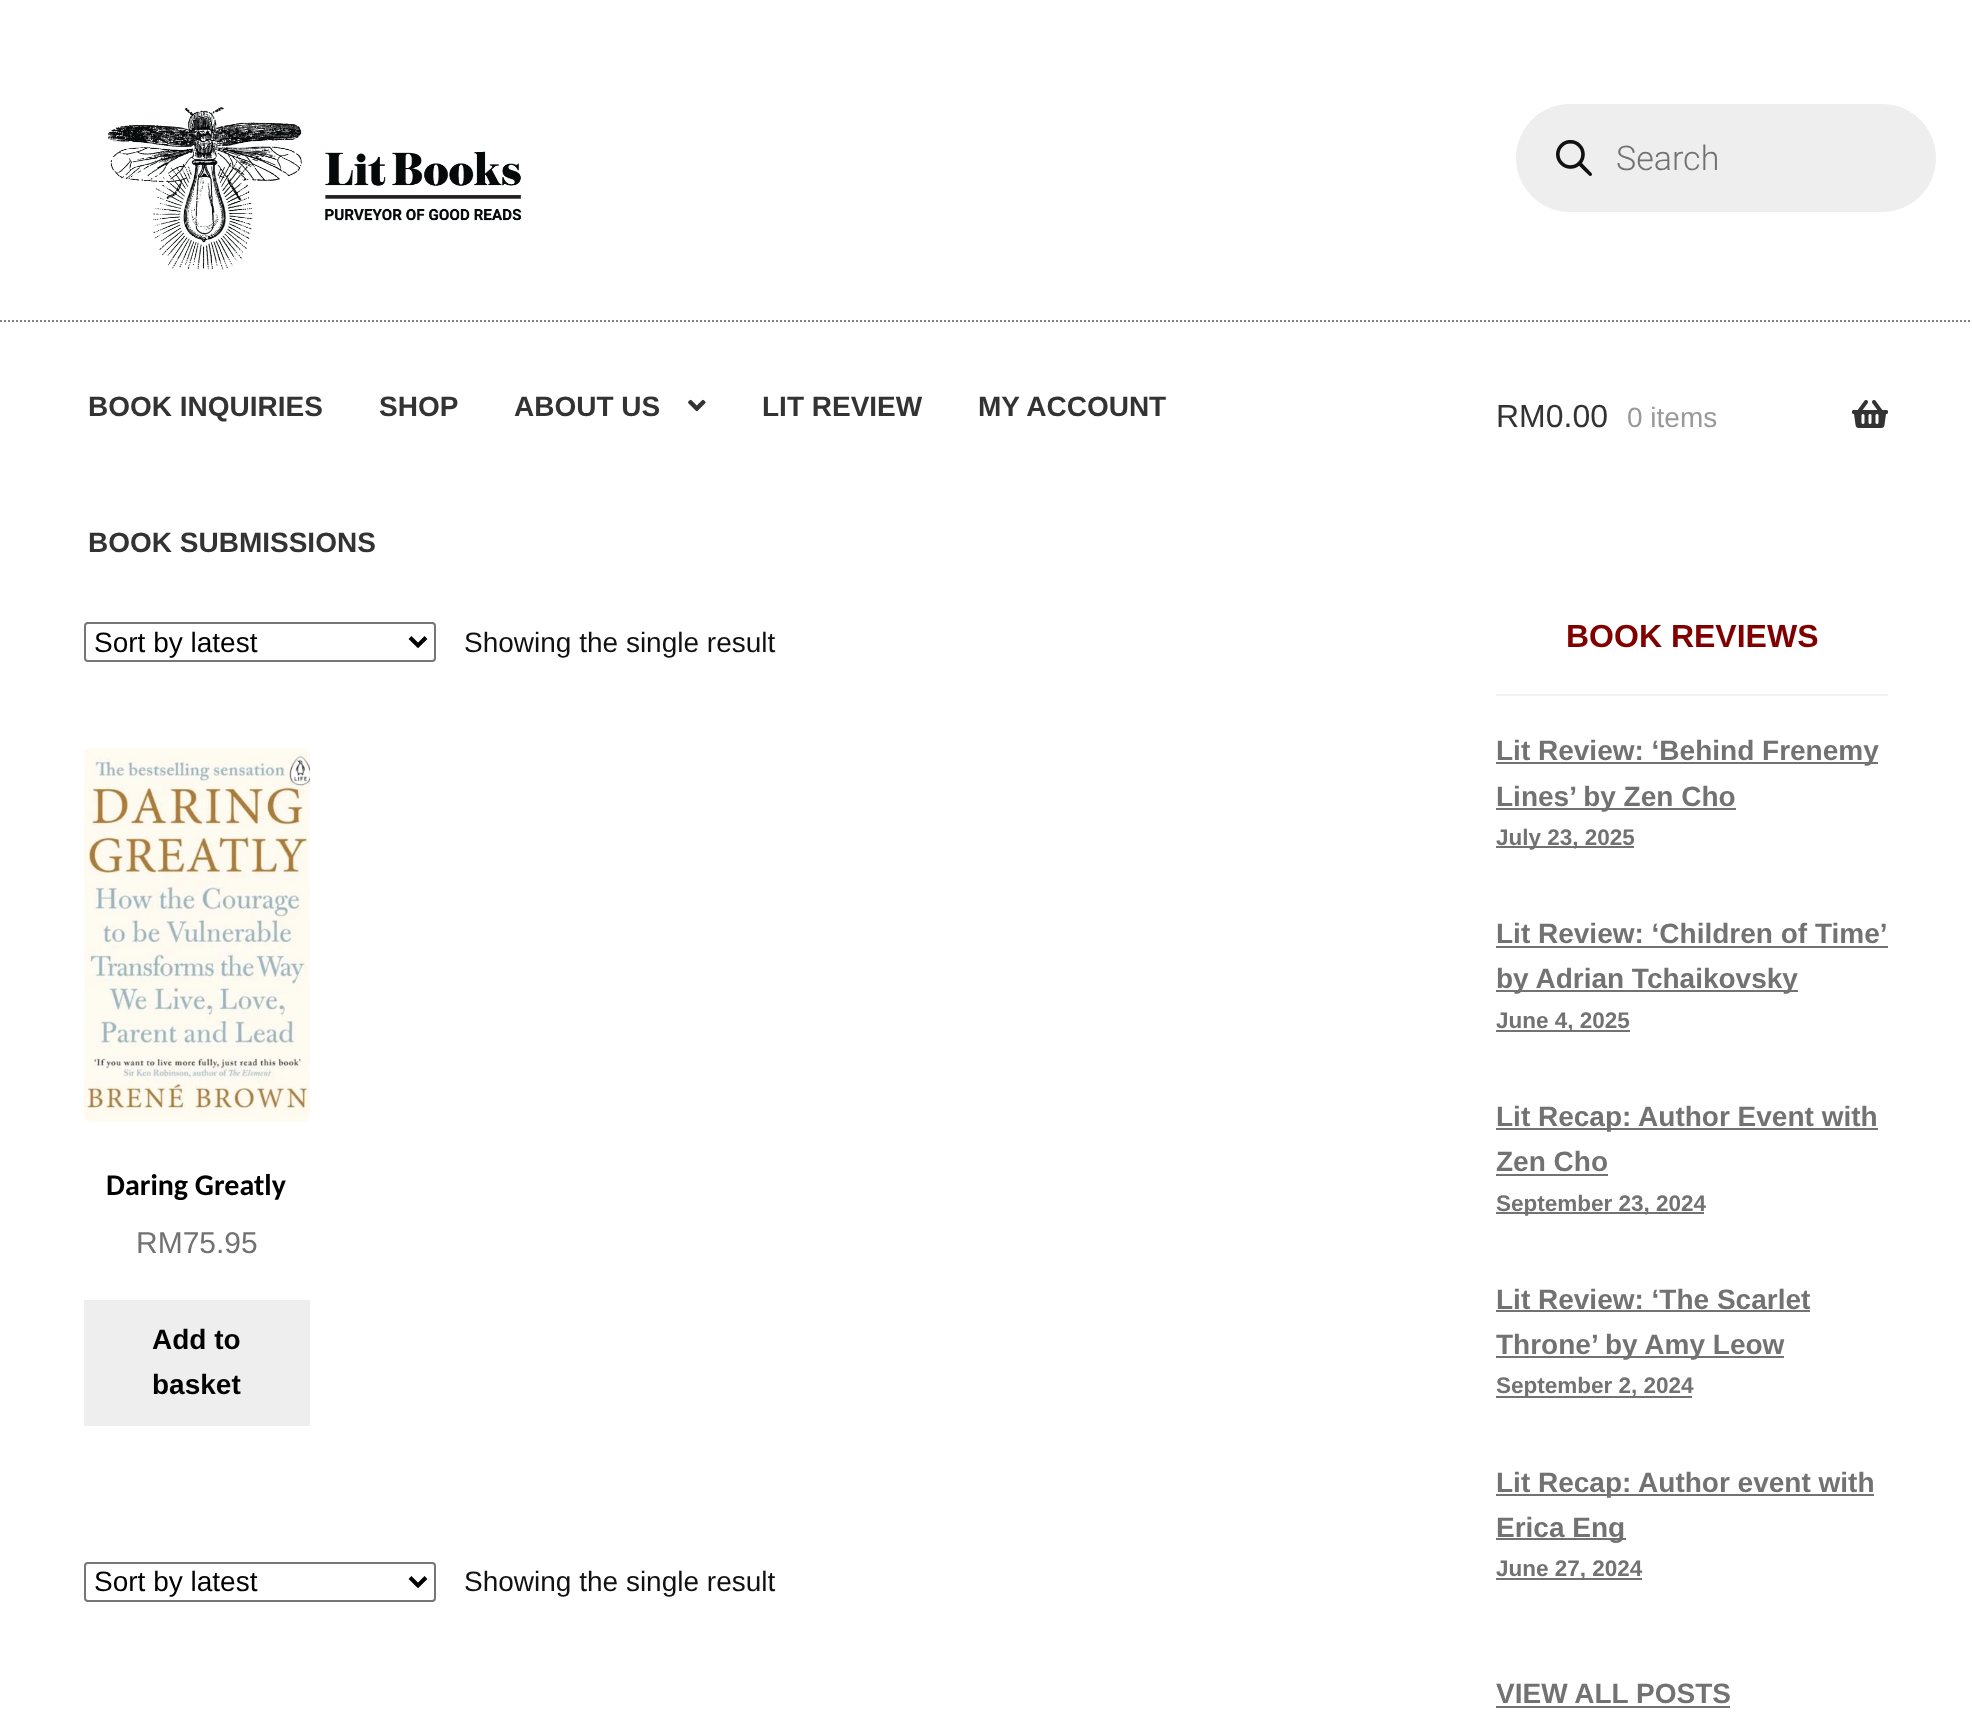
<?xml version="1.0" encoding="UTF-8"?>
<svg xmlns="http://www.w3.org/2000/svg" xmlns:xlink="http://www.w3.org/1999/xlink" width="1972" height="1721">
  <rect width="100%" height="100%" fill="#ffffff" />
  <path d="M 0 321 h 1972" fill="none" stroke="#808080" stroke-width="2" stroke-dasharray="2 2" />
  <image x="108" y="107" width="413" height="163" xlink:href="image1.png" />
  <rect x="1516" y="104" width="420" height="108" rx="54" fill="#eeeeee" />
  <image x="1556" y="140" width="36" height="36" xlink:href="image2.png" />
  <image x="688" y="399" width="18" height="13" xlink:href="image3.png" />
  <image x="1852" y="400" width="36" height="28" xlink:href="image4.png" />
  <rect x="85" y="623" width="350" height="38" rx="3" fill="none" stroke="#767676" stroke-width="2" />
  <path d="M 410 637.5 l 8 8 l 8 -8" fill="none" stroke="#000000" stroke-width="4" />
  <image x="84" y="748" width="226" height="374" xlink:href="image5.png" />
  <rect x="84" y="1300" width="226" height="126" fill="#eeeeee" />
  <rect x="85" y="1563" width="350" height="38" rx="3" fill="none" stroke="#767676" stroke-width="2" />
  <path d="M 410 1577.5 l 8 8 l 8 -8" fill="none" stroke="#000000" stroke-width="4" />
  <rect x="1496" y="694" width="392" height="2" fill="#f2f2f2" />
  <rect x="1496" y="762" width="382" height="2" fill="#727272" />
  <rect x="1496" y="808" width="240" height="2" fill="#727272" />
  <rect x="1496" y="846" width="138" height="2" fill="#727272" />
  <rect x="1496" y="946" width="392" height="2" fill="#727272" />
  <rect x="1496" y="990" width="302" height="2" fill="#727272" />
  <rect x="1496" y="1030" width="134" height="2" fill="#727272" />
  <rect x="1496" y="1128" width="382" height="2" fill="#727272" />
  <rect x="1496" y="1174" width="112" height="2" fill="#727272" />
  <rect x="1496" y="1212" width="208" height="2" fill="#727272" />
  <rect x="1496" y="1310" width="314" height="2" fill="#727272" />
  <rect x="1496" y="1356" width="288" height="2" fill="#727272" />
  <rect x="1496" y="1396" width="196" height="2" fill="#727272" />
  <rect x="1496" y="1494" width="378" height="2" fill="#727272" />
  <rect x="1496" y="1538" width="130" height="2" fill="#727272" />
  <rect x="1496" y="1578" width="146" height="2" fill="#727272" />
  <rect x="1496" y="1706" width="234" height="2" fill="#727272" />
  <text x="1616" y="170" style="font-family: Roboto; font-size: 34px; font-weight: 300; fill: #727272">Search</text>
  <text x="88" y="416" style="font-family: Liberation Sans; font-size: 28px; font-weight: bold; fill: #333333">BOOK INQUIRIES</text>
  <text x="379" y="416" style="font-family: Liberation Sans; font-size: 28px; font-weight: bold; fill: #333333">SHOP</text>
  <text x="514" y="416" style="font-family: Liberation Sans; font-size: 28px; font-weight: bold; fill: #333333">ABOUT US</text>
  <text x="762" y="416" style="font-family: Liberation Sans; font-size: 28px; font-weight: bold; fill: #333333">LIT REVIEW</text>
  <text x="978" y="416" style="font-family: Liberation Sans; font-size: 28px; font-weight: bold; fill: #333333">MY ACCOUNT</text>
  <text x="88" y="552" style="font-family: Liberation Sans; font-size: 28px; font-weight: bold; fill: #333333">BOOK SUBMISSIONS</text>
  <text x="1496" y="427" style="font-family: Liberation Sans; font-size: 32px; fill: #333333">RM0.00</text>
  <text x="1627" y="427" style="font-family: Liberation Sans; font-size: 28px; fill: #999999">0 items</text>
  <text x="94" y="652" style="font-family: Liberation Sans; font-size: 28px; fill: #000000">Sort by latest</text>
  <text x="464" y="652" style="font-family: Liberation Sans; font-size: 28px; fill: #111111">Showing the single result</text>
  <text x="106" y="1195" style="font-family: Carlito; font-size: 30px; font-weight: bold; fill: #000000">Daring Greatly</text>
  <text x="136" y="1253" style="font-family: Liberation Sans; font-size: 30px; fill: #727272">RM75.95</text>
  <text x="152" y="1349" style="font-family: Liberation Sans; font-size: 28px; font-weight: bold; fill: #000000">Add to</text>
  <text x="152" y="1394" style="font-family: Liberation Sans; font-size: 28px; font-weight: bold; fill: #000000">basket</text>
  <text x="94" y="1591" style="font-family: Liberation Sans; font-size: 28px; fill: #000000">Sort by latest</text>
  <text x="464" y="1591" style="font-family: Liberation Sans; font-size: 28px; fill: #111111">Showing the single result</text>
  <text x="1566" y="647" style="font-family: Liberation Sans; font-size: 32px; font-weight: bold; fill: #800000">BOOK REVIEWS</text>
  <text x="1496" y="760" style="font-family: Liberation Sans; font-size: 28px; font-weight: bold; fill: #727272">Lit Review: ‘Behind Frenemy</text>
  <text x="1496" y="806" style="font-family: Liberation Sans; font-size: 28px; font-weight: bold; fill: #727272">Lines’ by Zen Cho</text>
  <text x="1496" y="845" style="font-family: Liberation Sans; font-size: 22.5px; font-weight: bold; fill: #727272">July 23, 2025</text>
  <text x="1496" y="943" style="font-family: Liberation Sans; font-size: 28px; font-weight: bold; fill: #727272">Lit Review: ‘Children of Time’</text>
  <text x="1496" y="988" style="font-family: Liberation Sans; font-size: 28px; font-weight: bold; fill: #727272">by Adrian Tchaikovsky</text>
  <text x="1496" y="1028" style="font-family: Liberation Sans; font-size: 22.5px; font-weight: bold; fill: #727272">June 4, 2025</text>
  <text x="1496" y="1126" style="font-family: Liberation Sans; font-size: 28px; font-weight: bold; fill: #727272">Lit Recap: Author Event with</text>
  <text x="1496" y="1171" style="font-family: Liberation Sans; font-size: 28px; font-weight: bold; fill: #727272">Zen Cho</text>
  <text x="1496" y="1211" style="font-family: Liberation Sans; font-size: 22.5px; font-weight: bold; fill: #727272">September 23, 2024</text>
  <text x="1496" y="1309" style="font-family: Liberation Sans; font-size: 28px; font-weight: bold; fill: #727272">Lit Review: ‘The Scarlet</text>
  <text x="1496" y="1354" style="font-family: Liberation Sans; font-size: 28px; font-weight: bold; fill: #727272">Throne’ by Amy Leow</text>
  <text x="1496" y="1393" style="font-family: Liberation Sans; font-size: 22.5px; font-weight: bold; fill: #727272">September 2, 2024</text>
  <text x="1496" y="1492" style="font-family: Liberation Sans; font-size: 28px; font-weight: bold; fill: #727272">Lit Recap: Author event with</text>
  <text x="1496" y="1537" style="font-family: Liberation Sans; font-size: 28px; font-weight: bold; fill: #727272">Erica Eng</text>
  <text x="1496" y="1576" style="font-family: Liberation Sans; font-size: 22.5px; font-weight: bold; fill: #727272">June 27, 2024</text>
  <text x="1496" y="1703" style="font-family: Liberation Sans; font-size: 28px; font-weight: bold; fill: #727272">VIEW ALL POSTS</text>
</svg>
